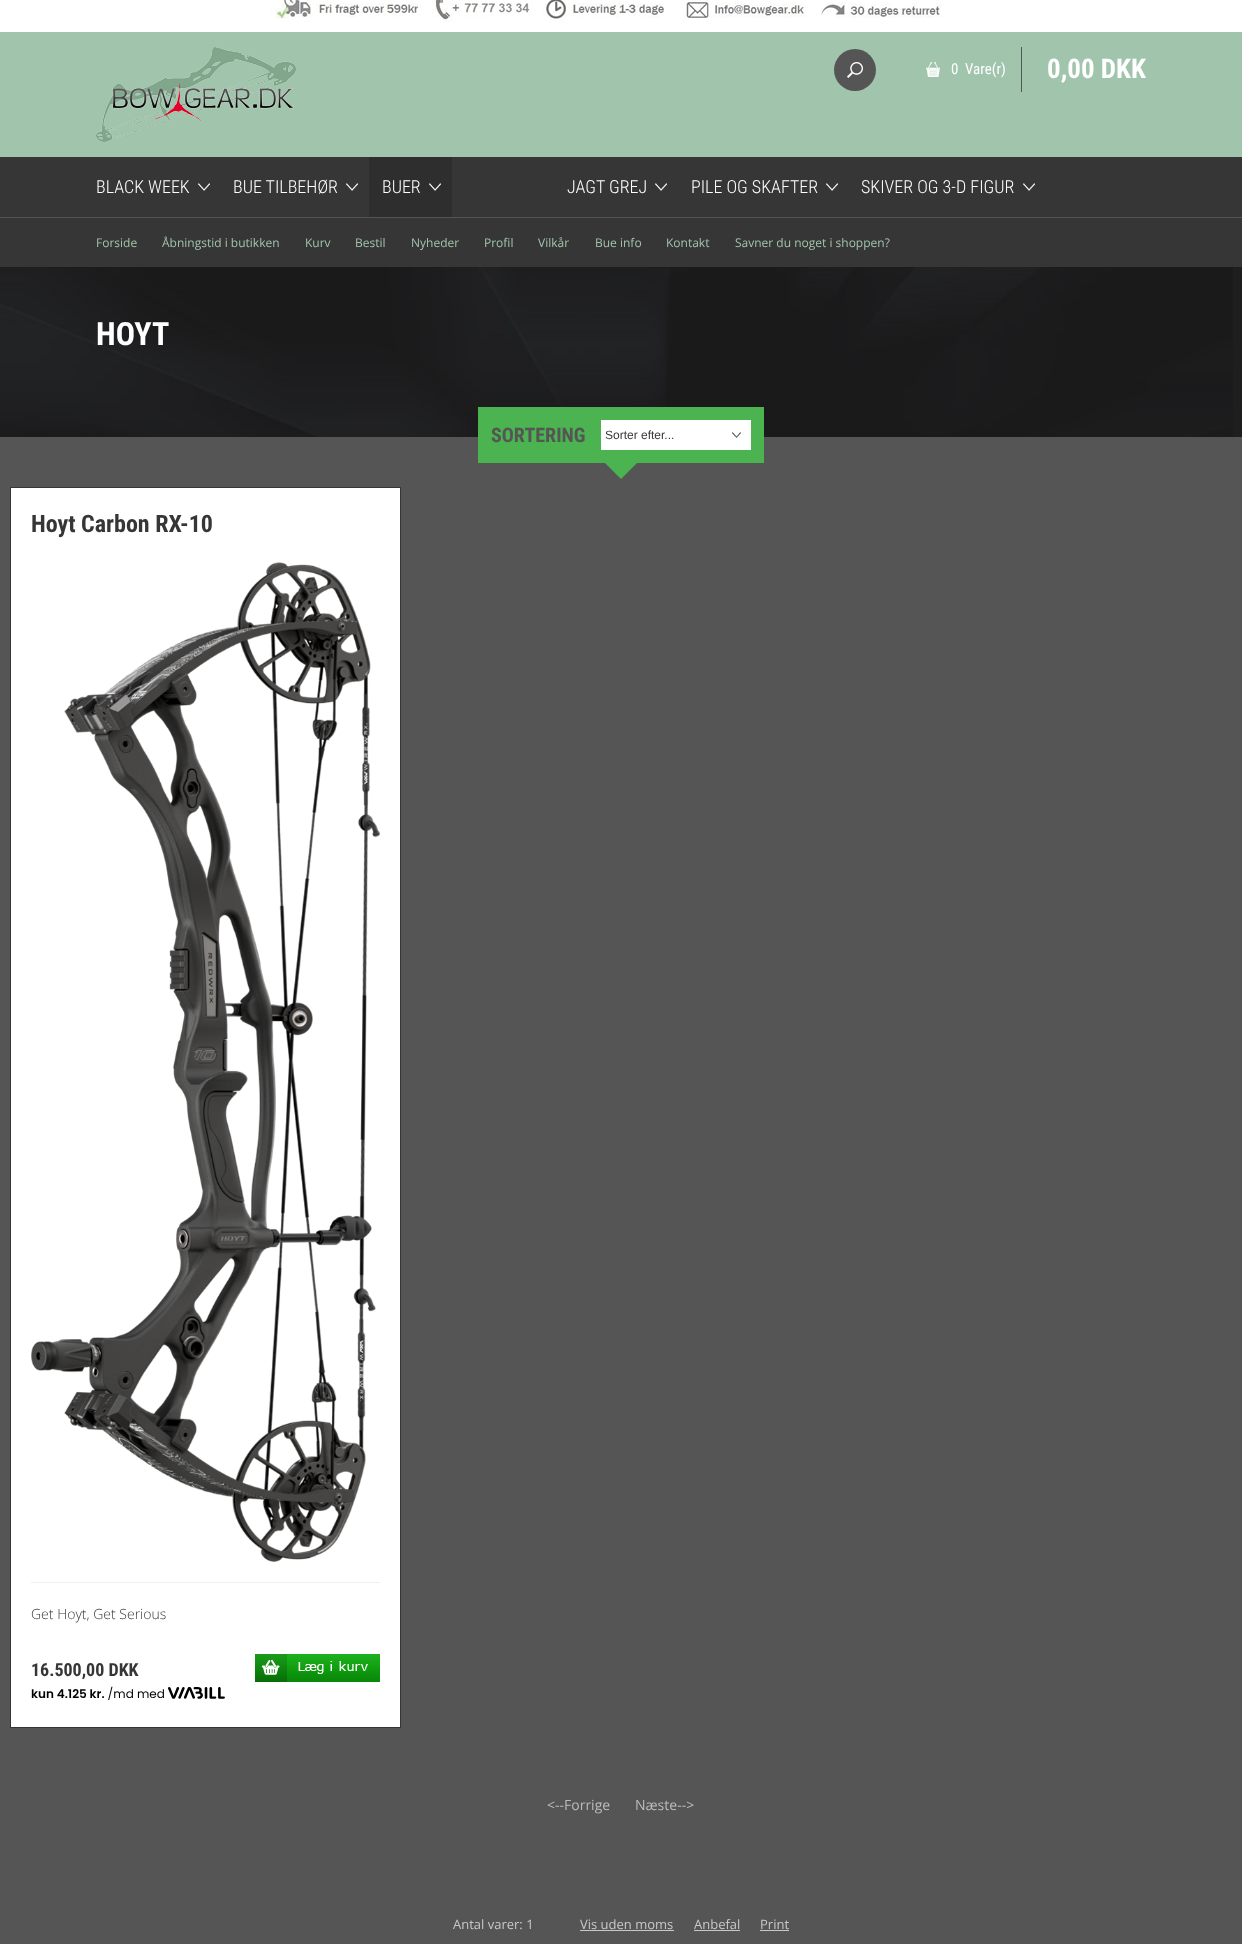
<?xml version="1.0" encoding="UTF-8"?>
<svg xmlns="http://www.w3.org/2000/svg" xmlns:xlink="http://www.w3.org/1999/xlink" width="1242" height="1944">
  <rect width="100%" height="100%" fill="#ffffff" />
  <image x="271" y="0" width="671" height="22" xlink:href="image1.png" />
  <rect y="32" width="1242" height="125" fill="#a1c4ac" />
  <image x="96" y="47" width="200" height="95" xlink:href="image2.png" />
  <circle cx="855" cy="70" r="21" fill="#555555" />
  <image x="847" y="62" width="16" height="16" xlink:href="image3.png" />
  <image x="926" y="62" width="14" height="15" xlink:href="image4.png" />
  <rect x="1021" y="47" width="1" height="45" fill="#555555" />
  <rect y="157" width="1242" height="60" fill="#363636" />
  <image x="198" y="183" width="12" height="8" xlink:href="image5.png" />
  <image x="346" y="183" width="12" height="8" xlink:href="image5.png" />
  <rect x="369" y="157" width="83" height="60" fill="#2e2e2e" />
  <image x="429" y="183" width="12" height="8" xlink:href="image6.png" />
  <image x="655" y="183" width="12" height="8" xlink:href="image5.png" />
  <image x="826" y="183" width="12" height="8" xlink:href="image5.png" />
  <image x="1023" y="183" width="12" height="8" xlink:href="image5.png" />
  <rect y="218" width="1242" height="49" fill="#363636" />
  <rect y="217" width="1242" height="1" fill="#555555" />
  <rect y="437" width="1242" height="1507" fill="#555555" />
  <rect x="1233" y="267" width="9" height="170" fill="#1e1e1e" />
  <image x="0" y="267" width="1233" height="170" xlink:href="image7.png" />
  <rect x="478" y="407" width="286" height="56" fill="#4bb350" />
  <rect x="601" y="420" width="150" height="30" fill="#ffffff" />
  <image x="732" y="432" width="9" height="6" xlink:href="image8.png" />
  <path d="M 605 463 h 32 l -16 16 z" fill="#4bb350" />
  <rect x="10.5" y="487.5" width="390" height="1240" fill="#ffffff" stroke="#363636" />
  <image x="31" y="562" width="349" height="1000" xlink:href="image9.png" />
  <rect x="31" y="1582" width="349" height="1" fill="#f0f0f0" />
  <image x="255" y="1654" width="125" height="28" xlink:href="image10.png" />
  <image x="31" y="1686" width="194" height="14" xlink:href="image11.png" />
  <rect x="580" y="1930" width="94" height="1" fill="#c8c8c8" />
  <rect x="694" y="1930" width="46" height="1" fill="#c8c8c8" />
  <rect x="760" y="1930" width="29" height="1" fill="#c8c8c8" />
  <text x="951" y="74" style="font-family: Roboto Condensed; font-size: 15px; fill: #ffffff">0</text>
  <text x="965" y="74" style="font-family: Roboto Condensed; font-size: 15px; fill: #ffffff">Vare(r)</text>
  <text x="1047" y="78" style="font-family: Roboto Condensed; font-size: 27px; font-weight: bold; fill: #ffffff">0,00 DKK</text>
  <text x="96" y="193" style="font-family: Roboto Condensed; font-size: 18px; font-weight: 300; fill: #ffffff">BLACK WEEK</text>
  <text x="233" y="193" style="font-family: Roboto Condensed; font-size: 18px; font-weight: 300; fill: #ffffff">BUE TILBEHØR</text>
  <text x="382" y="193" style="font-family: Roboto Condensed; font-size: 18px; font-weight: 300; fill: #ffffff">BUER</text>
  <text x="567" y="193" style="font-family: Roboto Condensed; font-size: 18px; font-weight: 300; fill: #ffffff">JAGT GREJ</text>
  <text x="691" y="193" style="font-family: Roboto Condensed; font-size: 18px; font-weight: 300; fill: #ffffff">PILE OG SKAFTER</text>
  <text x="861" y="193" style="font-family: Roboto Condensed; font-size: 18px; font-weight: 300; fill: #ffffff">SKIVER OG 3-D FIGUR</text>
  <text x="96" y="247" style="font-family: Open Sans; font-size: 12px; fill: #a1c4ac">Forside</text>
  <text x="162" y="247" style="font-family: Open Sans; font-size: 12px; fill: #a1c4ac">Åbningstid i butikken</text>
  <text x="305" y="247" style="font-family: Open Sans; font-size: 12px; fill: #a1c4ac">Kurv</text>
  <text x="355" y="247" style="font-family: Open Sans; font-size: 12px; fill: #a1c4ac">Bestil</text>
  <text x="411" y="247" style="font-family: Open Sans; font-size: 12px; fill: #a1c4ac">Nyheder</text>
  <text x="484" y="247" style="font-family: Open Sans; font-size: 12px; fill: #a1c4ac">Profil</text>
  <text x="538" y="247" style="font-family: Open Sans; font-size: 12px; fill: #a1c4ac">Vilkår</text>
  <text x="595" y="247" style="font-family: Open Sans; font-size: 12px; fill: #a1c4ac">Bue info</text>
  <text x="666" y="247" style="font-family: Open Sans; font-size: 12px; fill: #a1c4ac">Kontakt</text>
  <text x="735" y="247" style="font-family: Open Sans; font-size: 12px; fill: #a1c4ac">Savner du noget i shoppen?</text>
  <text x="96" y="345" style="font-family: Roboto Condensed; font-size: 32px; font-weight: bold; fill: #ffffff">HOYT</text>
  <text x="491" y="442" style="font-family: Roboto Condensed; font-size: 20px; font-weight: bold; fill: #555555">SORTERING</text>
  <text x="605" y="439" style="font-family: Liberation Sans; font-size: 12px; fill: #363636">Sorter efter...</text>
  <text x="31" y="532" style="font-family: Roboto Condensed; font-size: 24px; font-weight: bold; fill: #363636">Hoyt Carbon RX-10</text>
  <text x="31" y="1619" style="font-family: Open Sans; font-size: 14px; font-weight: 300; fill: #363636">Get Hoyt, Get Serious</text>
  <text x="31" y="1676" style="font-family: Roboto Condensed; font-size: 18px; font-weight: bold; fill: #363636">16.500,00 DKK</text>
  <text x="547" y="1810" style="font-family: Open Sans; font-size: 14px; fill: #bbbbbb">&lt;--Forrige</text>
  <text x="635" y="1810" style="font-family: Open Sans; font-size: 14px; fill: #bbbbbb">Næste--&gt;</text>
  <text x="453" y="1929" style="font-family: Open Sans; font-size: 13px; fill: #c8c8c8">Antal varer: 1</text>
  <text x="580" y="1929" style="font-family: Open Sans; font-size: 13px; fill: #c8c8c8">Vis uden moms</text>
  <text x="694" y="1929" style="font-family: Open Sans; font-size: 13px; fill: #c8c8c8">Anbefal</text>
  <text x="760" y="1929" style="font-family: Open Sans; font-size: 13px; fill: #c8c8c8">Print</text>
</svg>
